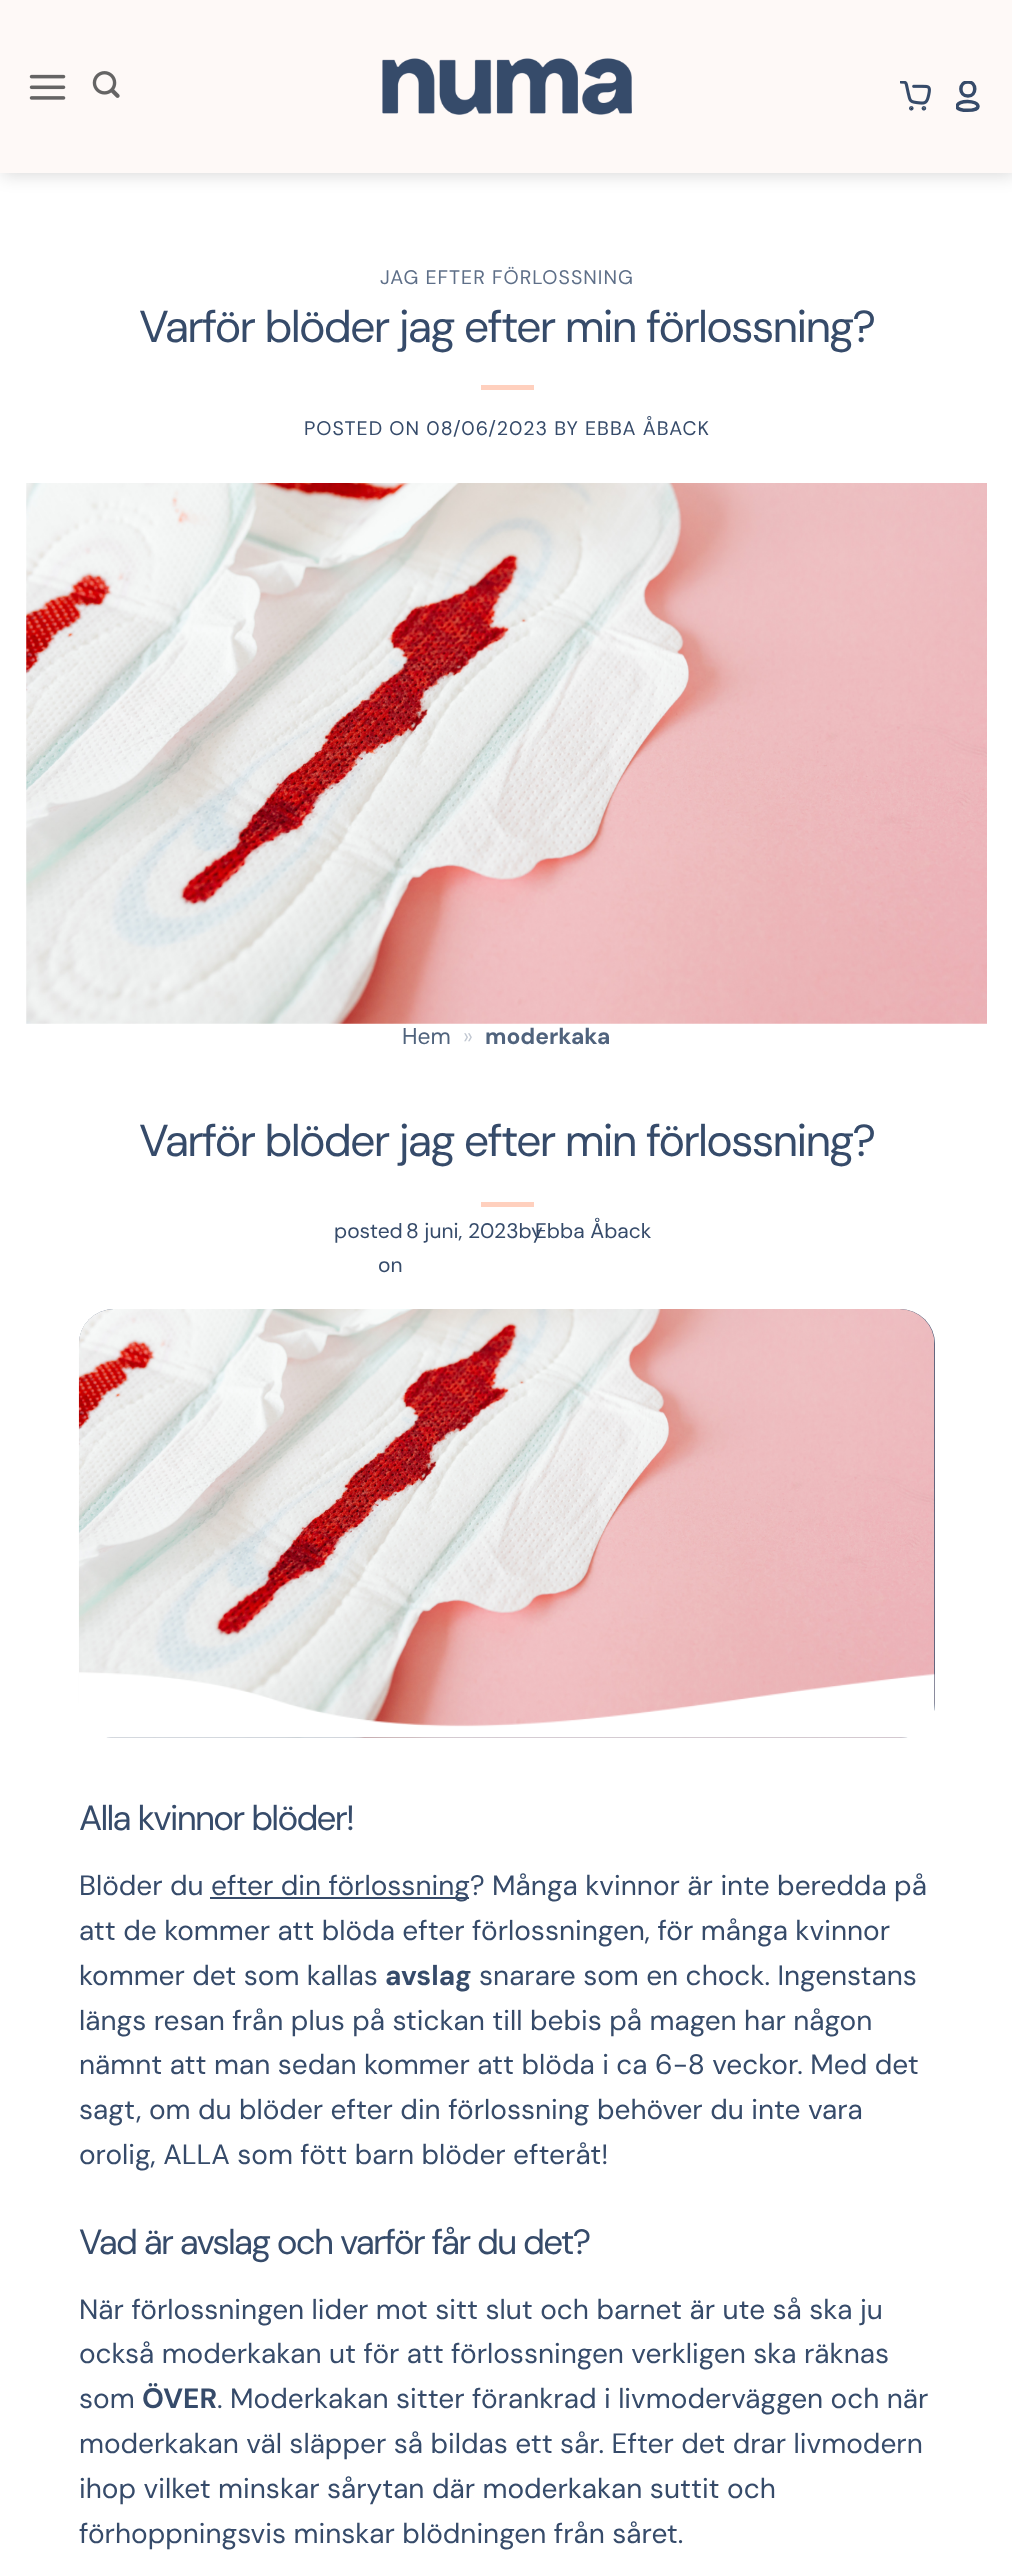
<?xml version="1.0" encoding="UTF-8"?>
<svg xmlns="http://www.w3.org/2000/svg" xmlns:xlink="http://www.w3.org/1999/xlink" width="1012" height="2563">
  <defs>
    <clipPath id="clip1"><rect x="956" y="81" width="24" height="31" /></clipPath>
  </defs>
  <rect width="100%" height="100%" fill="#ffffff" />
  <rect x="2" y="2" width="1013" height="173" fill="#000000" fill-opacity="0.15" filter="blur(9px)" />
  <rect width="1012" height="173" fill="#fef9f7" />
  <image x="29" y="74" width="37" height="26" xlink:href="image1.png" />
  <image x="92" y="71" width="28" height="27" xlink:href="image2.png" />
  <image x="382" y="58" width="250" height="57" xlink:href="image3.png" />
  <image x="900" y="81" width="31" height="30" xlink:href="image4.png" />
  <g clip-path="url(#clip1)">
    <path d="M 978 106.5 c 0 5 -21 5 -21 0 c 0.5 -7 21 -6.5 21 0 z m -10 -10.5 c 9 0 9 -14 0 -14 c -9.5 0 -9.5 14 0 14 z" fill="none" stroke="#364b6a" stroke-width="3.5" stroke-linecap="round" stroke-linejoin="round" />
  </g>
  <rect x="481" y="385" width="53" height="5" fill="#ffd0be" />
  <image x="26" y="483" width="961" height="541" xlink:href="image5.png" />
  <rect x="481" y="1202" width="53" height="5" fill="#ffd0be" />
  <rect x="79" y="1309" width="856" height="429" rx="35" fill="#364b6a" />
  <image x="78" y="1309" width="857" height="429" xlink:href="image6.png" />
  <image x="79" y="1672" width="856" height="66" xlink:href="image7.png" />
  <rect x="210" y="1897" width="259" height="2" fill="#364b6a" />
  <text x="380" y="284" style="font-family: DM Sans; font-size: 19.6px; letter-spacing: 1px; fill: #5e6f88">JAG EFTER FÖRLOSSNING</text>
  <text x="139" y="342" style="font-family: DM Sans; font-size: 44.75px; letter-spacing: -1.75px; fill: #364b6a">Varför blöder jag efter min förlossning?</text>
  <text x="304" y="435" style="font-family: DM Sans; font-size: 19.6px; letter-spacing: 1px; fill: #364b6a">POSTED ON 08/06/2023 BY EBBA ÅBACK</text>
  <text x="402" y="1044" style="font-family: DM Sans; font-size: 22.75px; fill: #50637d">Hem</text>
  <text x="463" y="1044" style="font-family: DM Sans; font-size: 22.75px; font-weight: 300; fill: #c2c8d2">»</text>
  <text x="485" y="1044" style="font-family: DM Sans; font-size: 22.75px; font-weight: bold; fill: #50637d">moderkaka</text>
  <text x="139" y="1156" style="font-family: DM Sans; font-size: 44.75px; letter-spacing: -1.75px; fill: #364b6a">Varför blöder jag efter min förlossning?</text>
  <text x="334" y="1238" style="font-family: DM Sans; font-size: 21px; fill: #364b6a">posted</text>
  <text x="378" y="1272" style="font-family: DM Sans; font-size: 21px; fill: #364b6a">on</text>
  <text x="406" y="1238" style="font-family: DM Sans; font-size: 21px; fill: #364b6a">8 juni, 2023by</text>
  <text x="535" y="1238" style="font-family: DM Sans; font-size: 21px; fill: #364b6a">Ebba Åback</text>
  <text x="79" y="1830" style="font-family: DM Sans; font-size: 35px; letter-spacing: -1.75px; fill: #364b6a">Alla kvinnor blöder!</text>
  <text x="79" y="1895" style="font-family: DM Sans; font-size: 28px; fill: #364b6a">Blöder du</text>
  <text x="211" y="1895" style="font-family: DM Sans; font-size: 28px; fill: #364b6a">efter din förlossning? Många kvinnor är inte beredda på</text>
  <text x="79" y="1940" style="font-family: DM Sans; font-size: 28px; fill: #364b6a">att de kommer att blöda efter förlossningen, för många kvinnor</text>
  <text x="79" y="1985" style="font-family: DM Sans; font-size: 28px; fill: #364b6a">kommer det som kallas</text>
  <text x="385" y="1985" style="font-family: DM Sans; font-size: 28px; font-weight: bold; fill: #364b6a">avslag</text>
  <text x="479" y="1985" style="font-family: DM Sans; font-size: 28px; fill: #364b6a">snarare som en chock. Ingenstans</text>
  <text x="79" y="2030" style="font-family: DM Sans; font-size: 28px; fill: #364b6a">längs resan från plus på stickan till bebis på magen har någon</text>
  <text x="79" y="2074" style="font-family: DM Sans; font-size: 28px; fill: #364b6a">nämnt att man sedan kommer att blöda i ca 6-8 veckor. Med det</text>
  <text x="79" y="2119" style="font-family: DM Sans; font-size: 28px; fill: #364b6a">sagt, om du blöder efter din förlossning behöver du inte vara</text>
  <text x="79" y="2164" style="font-family: DM Sans; font-size: 28px; fill: #364b6a">orolig, ALLA som fött barn blöder efteråt!</text>
  <text x="79" y="2254" style="font-family: DM Sans; font-size: 35px; letter-spacing: -1.75px; fill: #364b6a">Vad är avslag och varför får du det?</text>
  <text x="79" y="2319" style="font-family: DM Sans; font-size: 28px; fill: #364b6a">När förlossningen lider mot sitt slut och barnet är ute så ska ju</text>
  <text x="79" y="2363" style="font-family: DM Sans; font-size: 28px; fill: #364b6a">också moderkakan ut för att förlossningen verkligen ska räknas</text>
  <text x="79" y="2408" style="font-family: DM Sans; font-size: 28px; fill: #364b6a">som</text>
  <text x="142" y="2408" style="font-family: DM Sans; font-size: 28px; font-weight: bold; fill: #364b6a">ÖVER</text>
  <text x="217" y="2408" style="font-family: DM Sans; font-size: 28px; fill: #364b6a">. Moderkakan sitter förankrad i livmoderväggen och när</text>
  <text x="79" y="2453" style="font-family: DM Sans; font-size: 28px; fill: #364b6a">moderkakan väl släpper så bildas ett sår. Efter det drar livmodern</text>
  <text x="79" y="2498" style="font-family: DM Sans; font-size: 28px; fill: #364b6a">ihop vilket minskar sårytan där moderkakan suttit och</text>
  <text x="79" y="2543" style="font-family: DM Sans; font-size: 28px; fill: #364b6a">förhoppningsvis minskar blödningen från såret.</text>
</svg>
